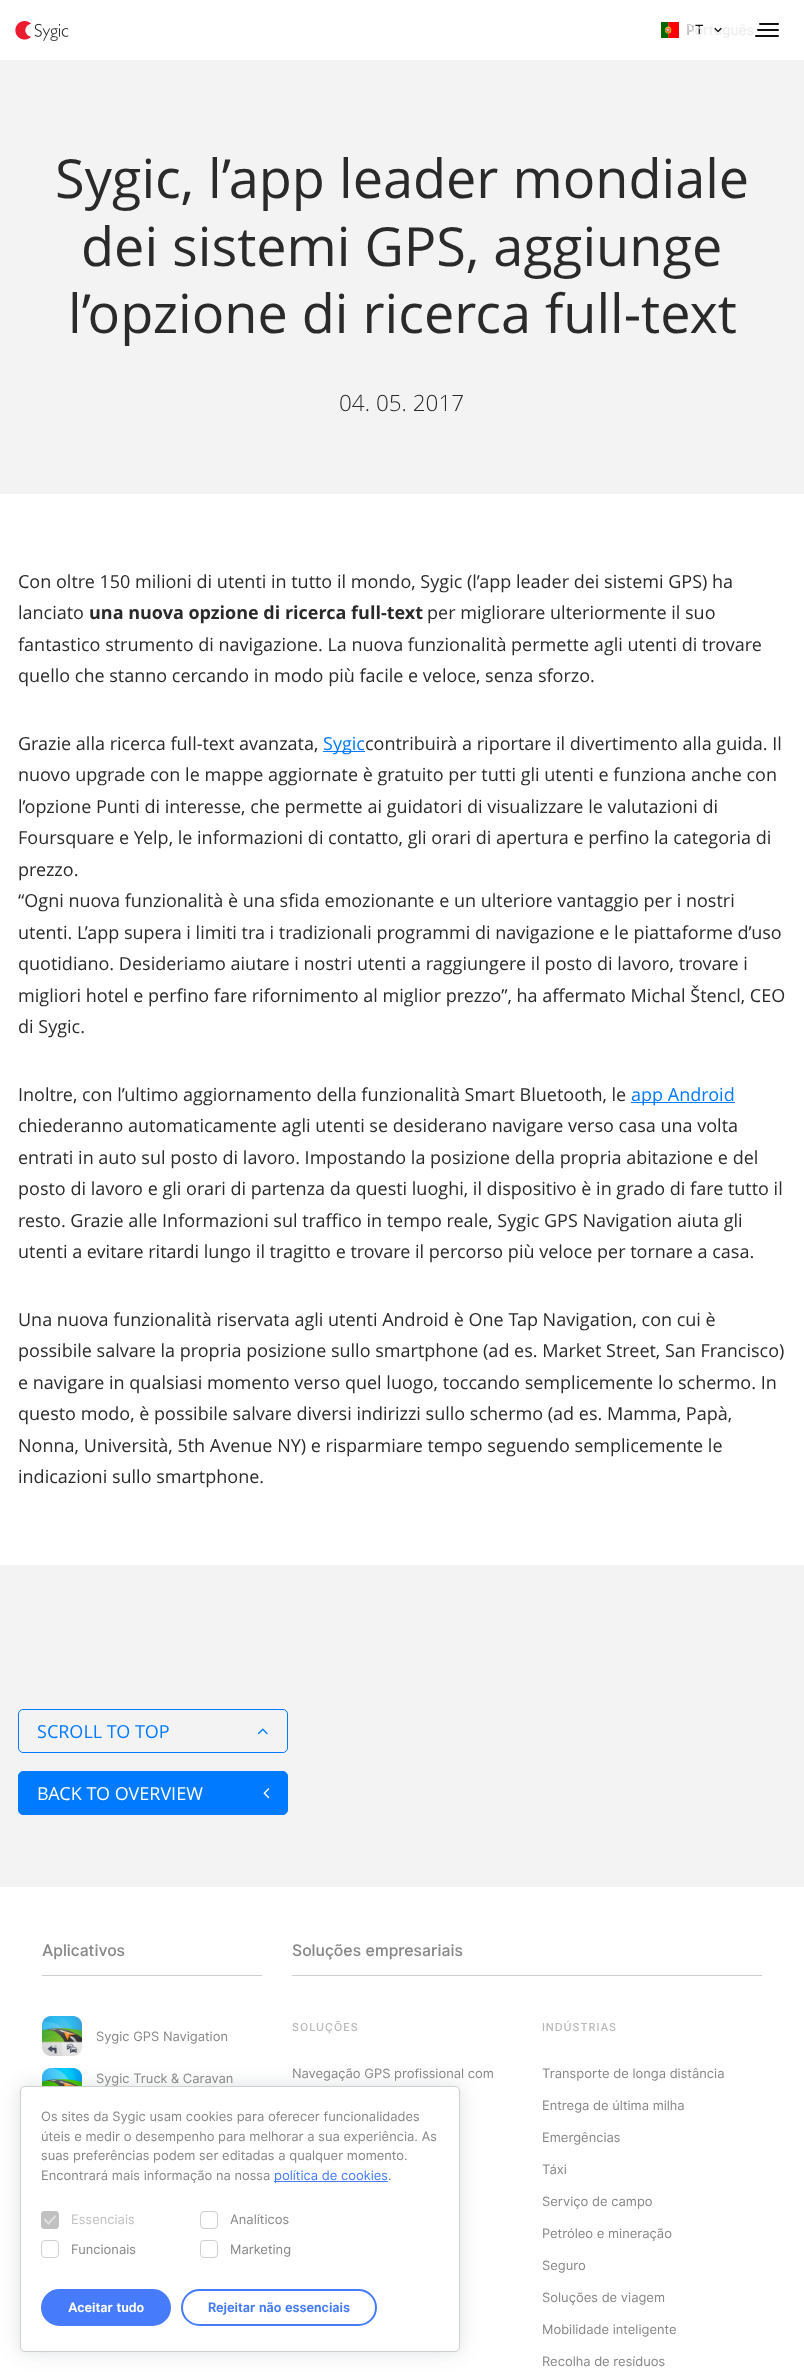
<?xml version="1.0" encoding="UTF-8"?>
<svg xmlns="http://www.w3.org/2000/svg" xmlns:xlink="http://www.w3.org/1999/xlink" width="804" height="2372">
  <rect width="100%" height="100%" fill="#f3f3f3" />
  <rect width="804" height="60" fill="#ffffff" />
  <image x="15" y="21" width="54" height="20" xlink:href="image1.png" />
  <image x="661" y="22" width="18" height="16" xlink:href="image2.png" />
  <rect x="759" y="23" width="20" height="2" rx="1" fill="#111111" />
  <rect x="757" y="29" width="22" height="2" rx="1" fill="#111111" />
  <rect x="755" y="35" width="24" height="2" rx="1" fill="#111111" />
  <rect y="494" width="804" height="1071" fill="#ffffff" />
  <rect x="323" y="751" width="42" height="1" fill="#007aff" />
  <rect x="631" y="1102" width="104" height="1" fill="#007aff" />
  <rect x="18.5" y="1709.5" width="269" height="43" rx="4.5" fill="none" stroke="#007aff" />
  <image x="257" y="1728" width="11" height="7" xlink:href="image4.png" />
  <rect x="18.5" y="1771.5" width="269" height="43" rx="4.5" fill="#007aff" stroke="#007aff" />
  <image x="263" y="1788" width="7" height="11" xlink:href="image5.png" />
  <rect y="1887" width="804" height="485" fill="#ffffff" />
  <rect x="42" y="1975" width="220" height="1" fill="#cfcfcf" />
  <image x="42" y="2016" width="40" height="40" xlink:href="image6.png" />
  <image x="42" y="2068" width="40" height="18" xlink:href="image7.png" />
  <rect x="292" y="1975" width="470" height="1" fill="#cfcfcf" />
  <rect x="20" y="2086" width="440" height="266" rx="5" fill="#202c3c" fill-opacity="0.15" filter="blur(10px)" />
  <rect x="20.5" y="2086.5" width="439" height="265" rx="4.5" fill="#ffffff" stroke="#cfcfcf" />
  <rect x="274" y="2181" width="114" height="1" fill="#467cfc" />
  <rect x="41" y="2211" width="18" height="18" rx="4" fill="#c1c1c2" />
  <image x="44" y="2215" width="12" height="10" xlink:href="image8.png" />
  <rect x="41.5" y="2211.5" width="17" height="17" rx="3.5" fill="none" stroke="#c1c1c2" />
  <rect x="200.5" y="2211.5" width="17" height="17" rx="3.5" fill="none" stroke="#cfcfcf" />
  <rect x="41.5" y="2240.5" width="17" height="17" rx="3.5" fill="none" stroke="#cfcfcf" />
  <rect x="200.5" y="2240.5" width="17" height="17" rx="3.5" fill="none" stroke="#cfcfcf" />
  <rect x="42" y="2290" width="128" height="35" rx="17.5" fill="#467cfc" stroke="#467cfc" stroke-width="2" />
  <rect x="182" y="2290" width="194" height="35" rx="17.5" fill="none" stroke="#467cfc" stroke-width="2" />
  <text x="686" y="35" style="font-family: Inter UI; font-size: 14px; fill: #111111">PT</text>
  <text x="686" y="35" style="font-family: Inter UI; font-size: 14px; fill: #ebebeb">Português</text>
  <image x="714" y="27" width="8" height="6" xlink:href="image3.png" />
  <text x="55" y="198" style="font-family: Open Sans; font-size: 54px; fill: #2a2a2a">Sygic, l’app leader mondiale</text>
  <text x="81" y="266" style="font-family: Open Sans; font-size: 54px; fill: #2a2a2a">dei sistemi GPS, aggiunge</text>
  <text x="68" y="333" style="font-family: Open Sans; font-size: 54px; fill: #2a2a2a">l’opzione di ricerca full-text</text>
  <text x="339" y="411" style="font-family: Open Sans; font-size: 22.5px; font-weight: 300; fill: #2a2a2a">04. 05. 2017</text>
  <text x="18" y="588" style="font-family: Open Sans; font-size: 18px; fill: #2a2a2a">Con oltre 150 milioni di utenti in tutto il mondo, Sygic (l’app leader dei sistemi GPS) ha</text>
  <text x="18" y="619" style="font-family: Open Sans; font-size: 18px; fill: #2a2a2a">lanciato</text>
  <text x="89" y="619" style="font-family: Open Sans; font-size: 18px; font-weight: bold; fill: #2a2a2a">una nuova opzione di ricerca full-text</text>
  <text x="427" y="619" style="font-family: Open Sans; font-size: 18px; fill: #2a2a2a">per migliorare ulteriormente il suo</text>
  <text x="18" y="651" style="font-family: Open Sans; font-size: 18px; fill: #2a2a2a">fantastico strumento di navigazione. La nuova funzionalità permette agli utenti di trovare</text>
  <text x="18" y="682" style="font-family: Open Sans; font-size: 18px; fill: #2a2a2a">quello che stanno cercando in modo più facile e veloce, senza sforzo.</text>
  <text x="18" y="750" style="font-family: Open Sans; font-size: 18px; fill: #2a2a2a">Grazie alla ricerca full-text avanzata,</text>
  <text x="323" y="750" style="font-family: Open Sans; font-size: 18px; fill: #007aff">Sygic</text>
  <text x="365" y="750" style="font-family: Open Sans; font-size: 18px; fill: #2a2a2a">contribuirà a riportare il divertimento alla guida. Il</text>
  <text x="18" y="781" style="font-family: Open Sans; font-size: 18px; fill: #2a2a2a">nuovo upgrade con le mappe aggiornate è gratuito per tutti gli utenti e funziona anche con</text>
  <text x="18" y="813" style="font-family: Open Sans; font-size: 18px; fill: #2a2a2a">l’opzione Punti di interesse, che permette ai guidatori di visualizzare le valutazioni di</text>
  <text x="18" y="844" style="font-family: Open Sans; font-size: 18px; fill: #2a2a2a">Foursquare e Yelp, le informazioni di contatto, gli orari di apertura e perfino la categoria di</text>
  <text x="18" y="876" style="font-family: Open Sans; font-size: 18px; fill: #2a2a2a">prezzo.</text>
  <text x="18" y="907" style="font-family: Open Sans; font-size: 18px; fill: #2a2a2a">“Ogni nuova funzionalità è una sfida emozionante e un ulteriore vantaggio per i nostri</text>
  <text x="18" y="939" style="font-family: Open Sans; font-size: 18px; fill: #2a2a2a">utenti. L’app supera i limiti tra i tradizionali programmi di navigazione e le piattaforme d’uso</text>
  <text x="18" y="970" style="font-family: Open Sans; font-size: 18px; fill: #2a2a2a">quotidiano. Desideriamo aiutare i nostri utenti a raggiungere il posto di lavoro, trovare i</text>
  <text x="18" y="1002" style="font-family: Open Sans; font-size: 18px; fill: #2a2a2a">migliori hotel e perfino fare rifornimento al miglior prezzo”, ha affermato Michal Štencl, CEO</text>
  <text x="18" y="1033" style="font-family: Open Sans; font-size: 18px; fill: #2a2a2a">di Sygic.</text>
  <text x="18" y="1101" style="font-family: Open Sans; font-size: 18px; fill: #2a2a2a">Inoltre, con l’ultimo aggiornamento della funzionalità Smart Bluetooth, le</text>
  <text x="631" y="1101" style="font-family: Open Sans; font-size: 18px; fill: #007aff">app Android</text>
  <text x="18" y="1132" style="font-family: Open Sans; font-size: 18px; fill: #2a2a2a">chiederanno automaticamente agli utenti se desiderano navigare verso casa una volta</text>
  <text x="18" y="1164" style="font-family: Open Sans; font-size: 18px; fill: #2a2a2a">entrati in auto sul posto di lavoro. Impostando la posizione della propria abitazione e del</text>
  <text x="18" y="1195" style="font-family: Open Sans; font-size: 18px; fill: #2a2a2a">posto di lavoro e gli orari di partenza da questi luoghi, il dispositivo è in grado di fare tutto il</text>
  <text x="18" y="1227" style="font-family: Open Sans; font-size: 18px; fill: #2a2a2a">resto. Grazie alle Informazioni sul traffico in tempo reale, Sygic GPS Navigation aiuta gli</text>
  <text x="18" y="1258" style="font-family: Open Sans; font-size: 18px; fill: #2a2a2a">utenti a evitare ritardi lungo il tragitto e trovare il percorso più veloce per tornare a casa.</text>
  <text x="18" y="1326" style="font-family: Open Sans; font-size: 18px; fill: #2a2a2a">Una nuova funzionalità riservata agli utenti Android è One Tap Navigation, con cui è</text>
  <text x="18" y="1357" style="font-family: Open Sans; font-size: 18px; fill: #2a2a2a">possibile salvare la propria posizione sullo smartphone (ad es. Market Street, San Francisco)</text>
  <text x="18" y="1389" style="font-family: Open Sans; font-size: 18px; fill: #2a2a2a">e navigare in qualsiasi momento verso quel luogo, toccando semplicemente lo schermo. In</text>
  <text x="18" y="1420" style="font-family: Open Sans; font-size: 18px; fill: #2a2a2a">questo modo, è possibile salvare diversi indirizzi sullo schermo (ad es. Mamma, Papà,</text>
  <text x="18" y="1452" style="font-family: Open Sans; font-size: 18px; fill: #2a2a2a">Nonna, Università, 5th Avenue NY) e risparmiare tempo seguendo semplicemente le</text>
  <text x="18" y="1483" style="font-family: Open Sans; font-size: 18px; fill: #2a2a2a">indicazioni sullo smartphone.</text>
  <text x="37" y="1738" style="font-family: Open Sans; font-size: 18px; fill: #007aff">SCROLL TO TOP</text>
  <text x="37" y="1800" style="font-family: Open Sans; font-size: 18px; fill: #ffffff">BACK TO OVERVIEW</text>
  <text x="42" y="1956" style="font-family: Inter UI; font-size: 16px; font-weight: 500; fill: #888888">Aplicativos</text>
  <text x="96" y="2041" style="font-family: Inter UI; font-size: 13px; fill: #888888">Sygic GPS Navigation</text>
  <text x="96" y="2083" style="font-family: Inter UI; font-size: 13px; fill: #888888">Sygic Truck &amp; Caravan</text>
  <text x="292" y="1956" style="font-family: Inter UI; font-size: 16px; font-weight: 500; fill: #888888">Soluções empresariais</text>
  <text x="292" y="2031" style="font-family: Inter UI; font-size: 11px; font-weight: 500; letter-spacing: 1px; fill: #b8b8b8">SOLUÇÕES</text>
  <text x="292" y="2078" style="font-family: Inter UI; font-size: 13px; fill: #888888">Navegação GPS profissional com</text>
  <text x="542" y="2031" style="font-family: Inter UI; font-size: 11px; font-weight: 500; letter-spacing: 1px; fill: #b8b8b8">INDÚSTRIAS</text>
  <text x="542" y="2078" style="font-family: Inter UI; font-size: 13px; fill: #888888">Transporte de longa distância</text>
  <text x="542" y="2110" style="font-family: Inter UI; font-size: 13px; fill: #888888">Entrega de última milha</text>
  <text x="542" y="2142" style="font-family: Inter UI; font-size: 13px; fill: #888888">Emergências</text>
  <text x="542" y="2174" style="font-family: Inter UI; font-size: 13px; fill: #888888">Táxi</text>
  <text x="542" y="2206" style="font-family: Inter UI; font-size: 13px; fill: #888888">Serviço de campo</text>
  <text x="542" y="2238" style="font-family: Inter UI; font-size: 13px; fill: #888888">Petróleo e mineração</text>
  <text x="542" y="2270" style="font-family: Inter UI; font-size: 13px; fill: #888888">Seguro</text>
  <text x="542" y="2302" style="font-family: Inter UI; font-size: 13px; fill: #888888">Soluções de viagem</text>
  <text x="542" y="2334" style="font-family: Inter UI; font-size: 13px; fill: #888888">Mobilidade inteligente</text>
  <text x="542" y="2366" style="font-family: Inter UI; font-size: 13px; fill: #888888">Recolha de resíduos</text>
  <text x="41" y="2121" style="font-family: Inter UI; font-size: 13px; fill: #888888">Os sites da Sygic usam cookies para oferecer funcionalidades</text>
  <text x="41" y="2141" style="font-family: Inter UI; font-size: 13px; fill: #888888">úteis e medir o desempenho para melhorar a sua experiência. As</text>
  <text x="41" y="2160" style="font-family: Inter UI; font-size: 13px; fill: #888888">suas preferências podem ser editadas a qualquer momento.</text>
  <text x="41" y="2180" style="font-family: Inter UI; font-size: 13px; fill: #888888">Encontrará mais informação na nossa</text>
  <text x="274" y="2180" style="font-family: Inter UI; font-size: 13px; fill: #467cfc">política de cookies</text>
  <text x="388" y="2180" style="font-family: Inter UI; font-size: 13px; fill: #888888">.</text>
  <text x="71" y="2224" style="font-family: Inter UI; font-size: 13px; fill: #c1c1c2">Essenciais</text>
  <text x="230" y="2224" style="font-family: Inter UI; font-size: 13px; fill: #888888">Analíticos</text>
  <text x="71" y="2254" style="font-family: Inter UI; font-size: 13px; fill: #888888">Funcionais</text>
  <text x="230" y="2254" style="font-family: Inter UI; font-size: 13px; fill: #888888">Marketing</text>
  <text x="68" y="2312" style="font-family: Inter UI; font-size: 13px; font-weight: bold; fill: #ffffff">Aceitar tudo</text>
  <text x="208" y="2312" style="font-family: Inter UI; font-size: 13px; font-weight: bold; fill: #467cfc">Rejeitar não essenciais</text>
</svg>
